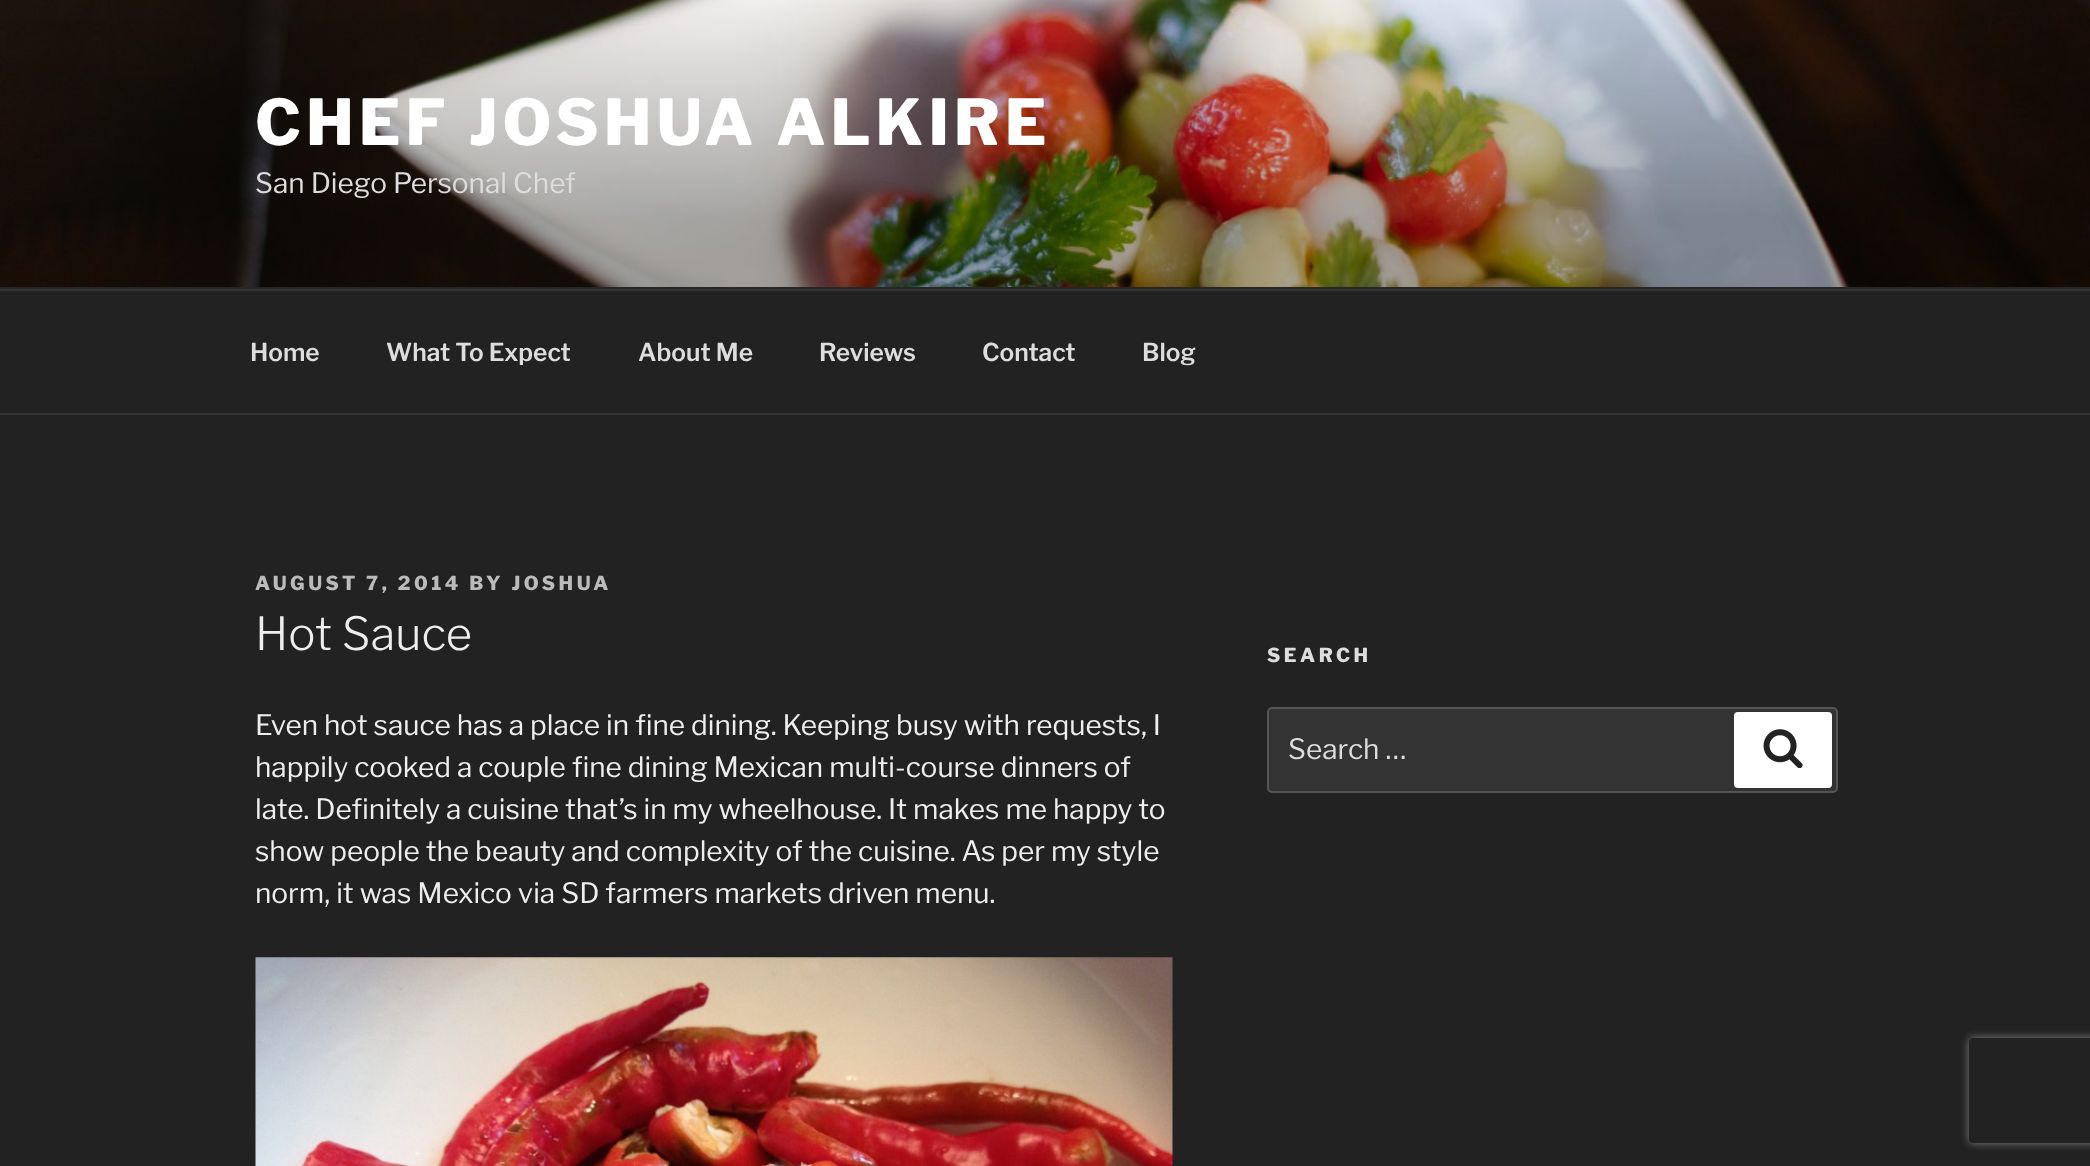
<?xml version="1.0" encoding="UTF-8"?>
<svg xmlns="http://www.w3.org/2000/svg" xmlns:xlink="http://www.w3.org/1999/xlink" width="2090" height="1166">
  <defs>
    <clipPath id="clip1"><path d="M 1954 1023 h 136 v 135 h -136 z m 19 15 h 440 c 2 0 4 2 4 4 v 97 c 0 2 -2 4 -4 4 h -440 c -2 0 -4 -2 -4 -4 v -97 c 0 -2 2 -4 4 -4 z" clip-rule="evenodd" /></clipPath>
  </defs>
  <rect width="100%" height="100%" fill="#222222" />
  <rect y="287" width="2090" height="2" fill="#262626" />
  <image x="0" y="0" width="2090" height="287" xlink:href="image1.png" />
  <rect y="289" width="2090" height="2" fill="#333333" />
  <rect y="413" width="2090" height="2" fill="#333333" />
  <image x="255" y="957" width="918" height="209" xlink:href="image2.png" />
  <rect x="1268" y="708" width="569" height="84" rx="4" fill="#333333" stroke="#555555" stroke-width="2" />
  <rect x="1734" y="712" width="98" height="76" rx="4" fill="#ffffff" />
  <image x="1763" y="729" width="40" height="39" xlink:href="image3.png" />
  <g clip-path="url(#clip1)">
    <rect x="1969" y="1038" width="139" height="105" rx="4" fill="#808080" filter="blur(4.5px)" />
  </g>
  <text x="255" y="145" style="font-family: Libre Franklin; font-size: 63px; font-weight: 100; letter-spacing: 5px; fill: #ffffff">CHEF JOSHUA ALKIRE</text>
  <text x="255" y="193" style="font-family: 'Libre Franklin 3'; font-size: 28px; font-weight: 100; fill: #dddddd">San Diego Personal Chef</text>
  <text x="250" y="361" style="font-family: 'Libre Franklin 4'; font-size: 24.5px; font-weight: 100; fill: #dddddd">Home</text>
  <text x="386" y="361" style="font-family: 'Libre Franklin 4'; font-size: 24.5px; font-weight: 100; fill: #dddddd">What To Expect</text>
  <text x="638" y="361" style="font-family: 'Libre Franklin 4'; font-size: 24.5px; font-weight: 100; fill: #dddddd">About Me</text>
  <text x="819" y="361" style="font-family: 'Libre Franklin 4'; font-size: 24.5px; font-weight: 100; fill: #dddddd">Reviews</text>
  <text x="982" y="361" style="font-family: 'Libre Franklin 4'; font-size: 24.5px; font-weight: 100; fill: #dddddd">Contact</text>
  <text x="1142" y="361" style="font-family: 'Libre Franklin 4'; font-size: 24.5px; font-weight: 100; fill: #dddddd">Blog</text>
  <text x="255" y="590" style="font-family: Libre Franklin; font-size: 19.25px; font-weight: 100; letter-spacing: 3.5px; fill: #bbbbbb">AUGUST 7, 2014 BY JOSHUA</text>
  <text x="255" y="650" style="font-family: 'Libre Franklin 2'; font-size: 45.5px; font-weight: 100; fill: #eeeeee">Hot Sauce</text>
  <text x="255" y="735" style="font-family: 'Libre Franklin 3'; font-size: 28px; font-weight: 100; fill: #eeeeee">Even hot sauce has a place in fine dining. Keeping busy with requests, I</text>
  <text x="255" y="777" style="font-family: 'Libre Franklin 3'; font-size: 28px; font-weight: 100; fill: #eeeeee">happily cooked a couple fine dining Mexican multi-course dinners of</text>
  <text x="255" y="819" style="font-family: 'Libre Franklin 3'; font-size: 28px; font-weight: 100; fill: #eeeeee">late. Definitely a cuisine that’s in my wheelhouse. It makes me happy to</text>
  <text x="255" y="861" style="font-family: 'Libre Franklin 3'; font-size: 28px; font-weight: 100; fill: #eeeeee">show people the beauty and complexity of the cuisine. As per my style</text>
  <text x="255" y="903" style="font-family: 'Libre Franklin 3'; font-size: 28px; font-weight: 100; fill: #eeeeee">norm, it was Mexico via SD farmers markets driven menu.</text>
  <text x="1267" y="662" style="font-family: Libre Franklin; font-size: 19.25px; font-weight: 100; letter-spacing: 3.5px; fill: #dddddd">SEARCH</text>
  <text x="1288" y="759" style="font-family: 'Libre Franklin 3'; font-size: 28px; font-weight: 100; fill: #dddddd">Search …</text>
</svg>
